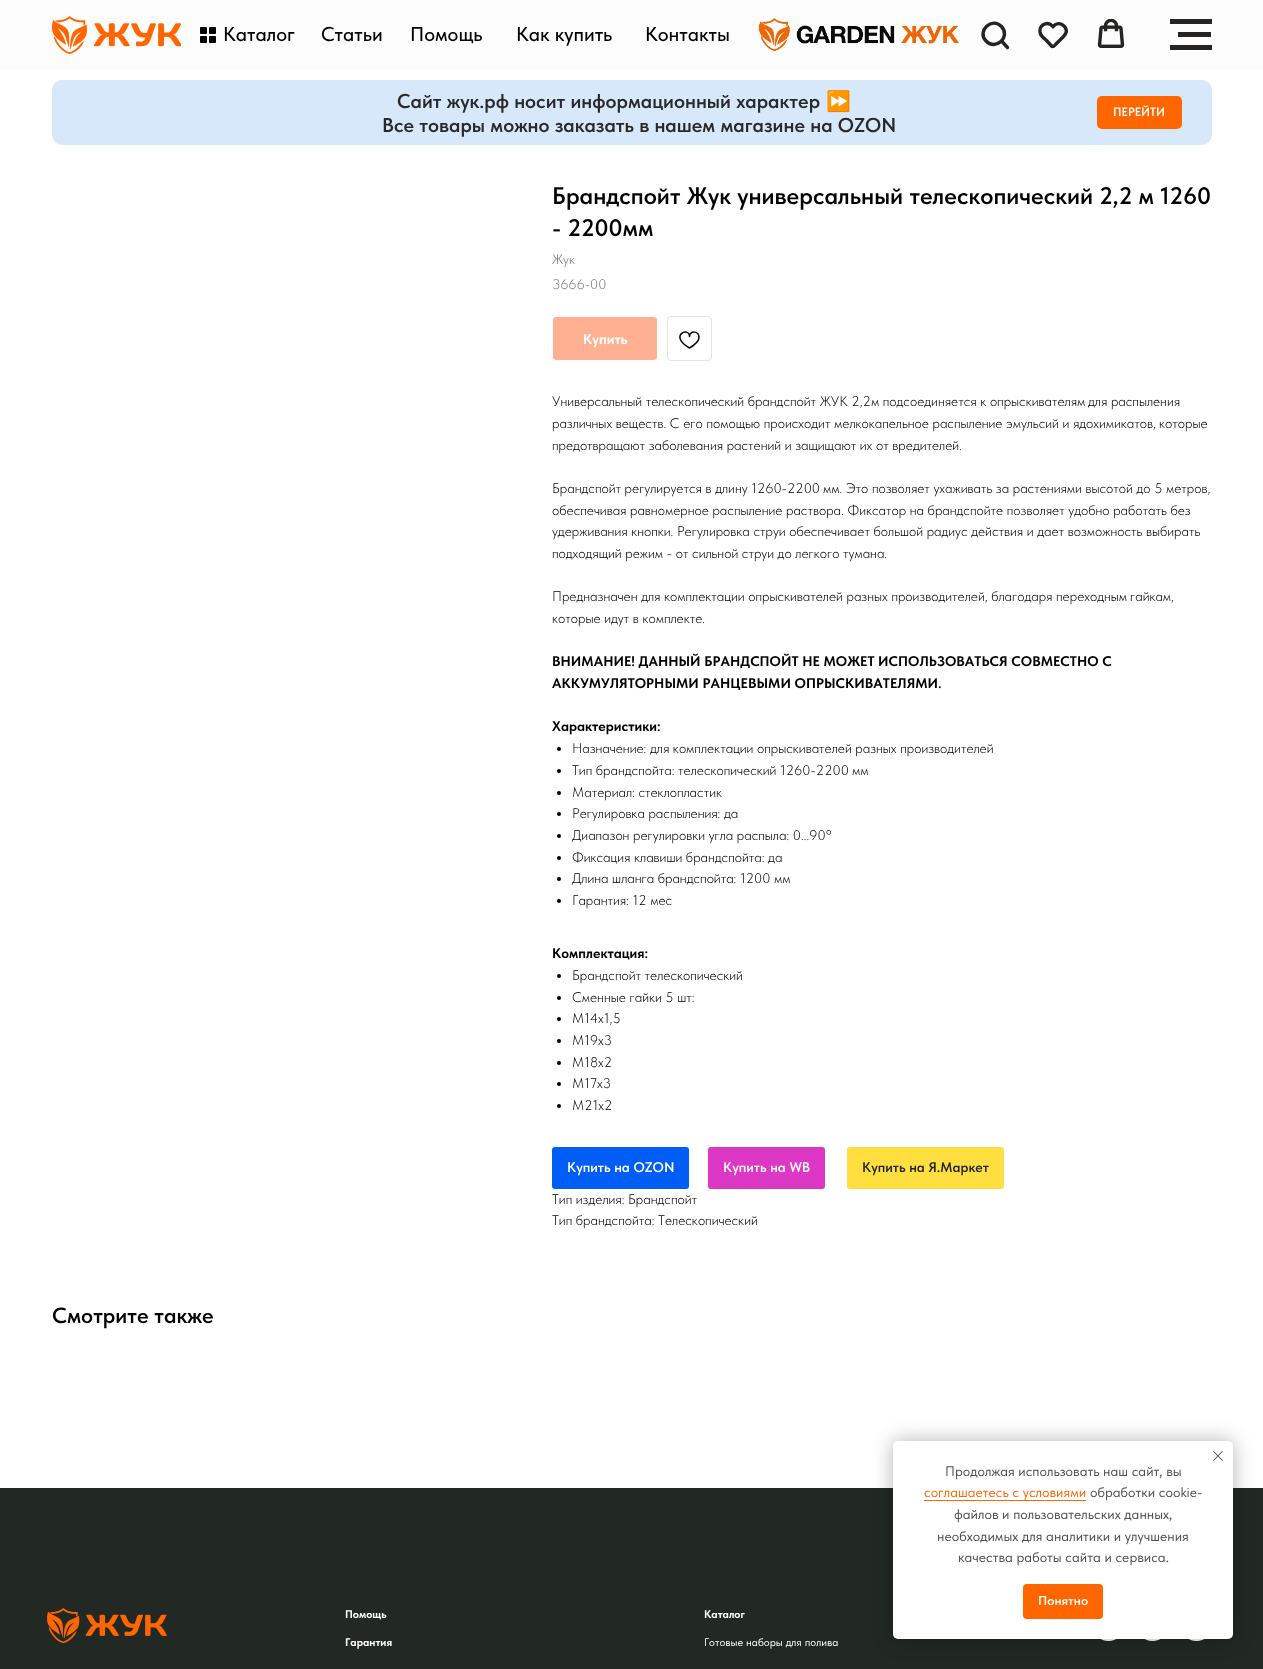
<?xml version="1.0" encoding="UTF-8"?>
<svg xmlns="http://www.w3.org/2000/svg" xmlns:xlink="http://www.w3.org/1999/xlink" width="1263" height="1669">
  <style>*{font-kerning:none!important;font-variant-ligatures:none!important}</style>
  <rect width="100%" height="100%" fill="#ffffff" />
  <rect width="1263" height="70" fill="#fcfcfc" />
  <image x="52" y="16" width="129" height="38" xlink:href="image1.png" />
  <path d="M 1001.5 26.5 c 9.5 10.5 -6 24.5 -15.5 14.5 c -9.5 -10 6 -24.5 15.5 -14.5 z" fill="none" stroke="#262423" stroke-width="3.4" />
  <path d="M 1002.5 42 l 5 5.5" fill="none" stroke="#262423" stroke-width="3.4" stroke-linecap="round" />
  <path d="M 1064 26 c 6 6 -1 11 -5 15 l -3.5 3.5 c -0.5 0.5 -2 2.5 -3.5 2 l -5 -5.5 c -2 -2 -5.5 -4.5 -6.5 -7 c -3 -8 6 -14 12.5 -7.5 c 3 -3 7.5 -4 11 -0.5 z" fill="none" stroke="#262423" stroke-width="3.4" stroke-linecap="round" />
  <image x="1097" y="19" width="28" height="29" xlink:href="image2.png" />
  <rect x="1170" y="19" width="42" height="5" fill="#262423" />
  <rect x="1178" y="32" width="33" height="5" fill="#262423" />
  <rect x="1170" y="45" width="42" height="5" fill="#262423" />
  <image x="200" y="27" width="16" height="16" xlink:href="image3.png" />
  <image x="758" y="18" width="201" height="34" xlink:href="image4.png" />
  <rect x="52" y="80" width="1160" height="65" rx="10" fill="#d7e8fa" />
  <rect x="1097" y="96" width="85" height="33" rx="5" fill="#ff6600" />
  <rect x="552.5" y="316.5" width="105" height="44" rx="3.5" fill="#ffaf92" stroke="#ffffff" />
  <rect x="667.5" y="316.5" width="44" height="44" rx="3.5" fill="none" stroke="#e4e4e4" />
  <path d="M 699 337.5 c 0 5 -9.5 10.5 -9.5 10.5 c -21.5 -12.5 0 -22 0 -11.5 c 0 -6 9.5 -6 9.5 1 z" fill="none" stroke="#000000" stroke-width="1.5" stroke-linejoin="round" />
  <circle cx="559" cy="749" r="2" fill="#000000" />
  <circle cx="559" cy="771" r="2" fill="#000000" />
  <circle cx="559" cy="793" r="2" fill="#000000" />
  <circle cx="559" cy="814" r="2" fill="#000000" />
  <circle cx="559" cy="836" r="2" fill="#000000" />
  <circle cx="559" cy="858" r="2" fill="#000000" />
  <circle cx="559" cy="879" r="2" fill="#000000" />
  <circle cx="559" cy="901" r="2" fill="#000000" />
  <circle cx="559" cy="976" r="2" fill="#000000" />
  <circle cx="559" cy="998" r="2" fill="#000000" />
  <circle cx="559" cy="1019" r="2" fill="#000000" />
  <circle cx="559" cy="1041" r="2" fill="#000000" />
  <circle cx="559" cy="1063" r="2" fill="#000000" />
  <circle cx="559" cy="1084" r="2" fill="#000000" />
  <circle cx="559" cy="1106" r="2" fill="#000000" />
  <rect x="552" y="1147" width="137" height="42" rx="3" fill="#005ef6" />
  <rect x="708" y="1147" width="117" height="42" rx="3" fill="#dc37c5" />
  <rect x="847" y="1147" width="157" height="42" rx="3" fill="#ffdf3f" />
  <rect y="1488" width="1263" height="181" fill="#222924" />
  <image x="1100" y="1639" width="17" height="2" xlink:href="image7.png" />
  <image x="1144" y="1639" width="17" height="2" xlink:href="image7.png" />
  <image x="1188" y="1639" width="17" height="2" xlink:href="image7.png" />
  <rect x="893" y="1441" width="340" height="198" rx="5" fill="#000000" fill-opacity="0.3" filter="blur(10px)" />
  <rect x="893" y="1441" width="340" height="198" rx="5" fill="#ffffff" />
  <image x="1213" y="1451" width="10" height="10" xlink:href="image5.png" />
  <rect x="924" y="1500" width="162" height="1" fill="#ff6600" />
  <rect x="1023" y="1584" width="80" height="35" rx="4" fill="#ff6600" />
  <image x="47" y="1608" width="120" height="35" xlink:href="image6.png" />
  <text x="223" y="41" style="font-family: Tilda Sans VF; font-size: 20px; font-weight: 500; fill: #000000">Каталог</text>
  <text x="321" y="41" style="font-family: Tilda Sans VF; font-size: 20px; font-weight: 500; fill: #000000">Статьи</text>
  <text x="410" y="41" style="font-family: Tilda Sans VF; font-size: 20px; font-weight: 500; fill: #000000">Помощь</text>
  <text x="516" y="41" style="font-family: Tilda Sans VF; font-size: 20px; font-weight: 500; fill: #000000">Как купить</text>
  <text x="645" y="41" style="font-family: Tilda Sans VF; font-size: 20px; font-weight: 500; fill: #000000">Контакты</text>
  <text x="397" y="108" style="font-family: Tilda Sans VF; font-size: 20px; font-weight: 600; fill: #292929">Сайт жук.рф носит информационный характер</text>
  <text x="826" y="108" style="font-family: Noto Color Emoji; font-size: 20px; font-weight: bold; fill: #292929">⏩</text>
  <text x="382" y="132" style="font-family: Tilda Sans VF; font-size: 20px; font-weight: 600; fill: #292929">Все товары можно заказать в нашем магазине на OZON</text>
  <text x="1113" y="116" style="font-family: Tilda Sans VF; font-size: 12px; font-weight: 600; fill: #ffffff">ПЕРЕЙТИ</text>
  <text x="552" y="204" style="font-family: Tilda Sans VF; font-size: 24px; font-weight: 600; fill: #000000">Брандспойт Жук универсальный телескопический 2,2 м 1260</text>
  <text x="552" y="236" style="font-family: Tilda Sans VF; font-size: 24px; font-weight: 600; fill: #000000">- 2200мм</text>
  <text x="552" y="264" style="font-family: Tilda Sans VF; font-size: 14px; font-weight: 300; fill: #777777">Жук</text>
  <text x="552" y="289" style="font-family: Tilda Sans VF; font-size: 14px; font-weight: 300; fill: #777777">3666-00</text>
  <text x="583" y="344" style="font-family: Tilda Sans VF; font-size: 14px; font-weight: bold; fill: #ffffff">Купить</text>
  <text x="552" y="406" style="font-family: Tilda Sans VF; font-size: 14px; font-weight: 300; fill: #000000">Универсальный телескопический брандспойт ЖУК 2,2м подсоединяется к опрыскивателям</text>
  <text x="1088" y="406" style="font-family: Tilda Sans VF; font-size: 14px; font-weight: 300; fill: #000000">для распыления</text>
  <text x="552" y="428" style="font-family: Tilda Sans VF; font-size: 14px; font-weight: 300; fill: #000000">различных веществ. С его помощью происходит мелкокапельное распыление эмульсий и ядохимикатов,</text>
  <text x="1159" y="428" style="font-family: Tilda Sans VF; font-size: 14px; font-weight: 300; fill: #000000">которые</text>
  <text x="552" y="450" style="font-family: Tilda Sans VF; font-size: 14px; font-weight: 300; fill: #000000">предотвращают заболевания растений и защищают их от вредителей.</text>
  <text x="552" y="493" style="font-family: Tilda Sans VF; font-size: 14px; font-weight: 300; fill: #000000">Брандспойт регулируется в длину 1260-2200</text>
  <text x="823" y="493" style="font-family: Tilda Sans VF; font-size: 14px; font-weight: 300; fill: #000000">мм. Это позволяет ухаживать за растениями высотой до 5 метров,</text>
  <text x="552" y="515" style="font-family: Tilda Sans VF; font-size: 14px; font-weight: 300; fill: #000000">обеспечивая равномерное распыление раствора. Фиксатор на брандспойте позволяет удобно работать без</text>
  <text x="552" y="536" style="font-family: Tilda Sans VF; font-size: 14px; font-weight: 300; fill: #000000">удерживания кнопки. Регулировка струи обеспечивает большой радиус действия и дает возможность</text>
  <text x="1146" y="536" style="font-family: Tilda Sans VF; font-size: 14px; font-weight: 300; fill: #000000">выбирать</text>
  <text x="552" y="558" style="font-family: Tilda Sans VF; font-size: 14px; font-weight: 300; fill: #000000">подходящий режим - от сильной струи до легкого тумана.</text>
  <text x="552" y="601" style="font-family: Tilda Sans VF; font-size: 14px; font-weight: 300; fill: #000000">Предназначен для комплектации опрыскивателей разных производителей, благодаря переходным</text>
  <text x="1130" y="601" style="font-family: Tilda Sans VF; font-size: 14px; font-weight: 300; fill: #000000">гайкам,</text>
  <text x="552" y="623" style="font-family: Tilda Sans VF; font-size: 14px; font-weight: 300; fill: #000000">которые идут в комплекте.</text>
  <text x="552" y="666" style="font-family: Tilda Sans VF; font-size: 14px; font-weight: bold; fill: #000000">ВНИМАНИЕ! ДАННЫЙ БРАНДСПОЙТ НЕ МОЖЕТ ИСПОЛЬЗОВАТЬСЯ СОВМЕСТНО С</text>
  <text x="552" y="688" style="font-family: Tilda Sans VF; font-size: 14px; font-weight: bold; fill: #000000">АККУМУЛЯТОРНЫМИ РАНЦЕВЫМИ ОПРЫСКИВАТЕЛЯМИ.</text>
  <text x="552" y="731" style="font-family: Tilda Sans VF; font-size: 14px; font-weight: bold; fill: #000000">Характеристики:</text>
  <text x="572" y="753" style="font-family: Tilda Sans VF; font-size: 14px; font-weight: 300; fill: #000000">Назначение: для комплектации опрыскивателей разных производителей</text>
  <text x="572" y="775" style="font-family: Tilda Sans VF; font-size: 14px; font-weight: 300; fill: #000000">Тип брандспойта: телескопический 1260-2200</text>
  <text x="852" y="775" style="font-family: Tilda Sans VF; font-size: 14px; font-weight: 300; fill: #000000">мм</text>
  <text x="572" y="797" style="font-family: Tilda Sans VF; font-size: 14px; font-weight: 300; fill: #000000">Материал: стеклопластик</text>
  <text x="572" y="818" style="font-family: Tilda Sans VF; font-size: 14px; font-weight: 300; fill: #000000">Регулировка распыления: да</text>
  <text x="572" y="840" style="font-family: Tilda Sans VF; font-size: 14px; font-weight: 300; fill: #000000">Диапазон регулировки угла распыла: 0...90°</text>
  <text x="572" y="862" style="font-family: Tilda Sans VF; font-size: 14px; font-weight: 300; fill: #000000">Фиксация клавиши брандспойта: да</text>
  <text x="572" y="883" style="font-family: Tilda Sans VF; font-size: 14px; font-weight: 300; fill: #000000">Длина шланга брандспойта: 1200 мм</text>
  <text x="572" y="905" style="font-family: Tilda Sans VF; font-size: 14px; font-weight: 300; fill: #000000">Гарантия: 12 мес</text>
  <text x="552" y="958" style="font-family: Tilda Sans VF; font-size: 14px; font-weight: bold; fill: #000000">Комплектация:</text>
  <text x="572" y="980" style="font-family: Tilda Sans VF; font-size: 14px; font-weight: 300; fill: #000000">Брандспойт телескопический</text>
  <text x="572" y="1002" style="font-family: Tilda Sans VF; font-size: 14px; font-weight: 300; fill: #000000">Сменные гайки 5 шт:</text>
  <text x="572" y="1023" style="font-family: Tilda Sans VF; font-size: 14px; font-weight: 300; fill: #000000">М14х1,5</text>
  <text x="572" y="1045" style="font-family: Tilda Sans VF; font-size: 14px; font-weight: 300; fill: #000000">М19х3</text>
  <text x="572" y="1067" style="font-family: Tilda Sans VF; font-size: 14px; font-weight: 300; fill: #000000">М18х2</text>
  <text x="572" y="1088" style="font-family: Tilda Sans VF; font-size: 14px; font-weight: 300; fill: #000000">М17х3</text>
  <text x="572" y="1110" style="font-family: Tilda Sans VF; font-size: 14px; font-weight: 300; fill: #000000">М21х2</text>
  <text x="567" y="1172" style="font-family: Tilda Sans VF; font-size: 14px; font-weight: 600; fill: #ffffff">Купить на OZON</text>
  <text x="723" y="1172" style="font-family: Tilda Sans VF; font-size: 14px; font-weight: 600; fill: #ffffff">Купить на WB</text>
  <text x="862" y="1172" style="font-family: Tilda Sans VF; font-size: 14px; font-weight: 600; fill: #24241f">Купить на Я.Маркет</text>
  <text x="552" y="1204" style="font-family: Tilda Sans VF; font-size: 14px; font-weight: 300; fill: #000000">Тип изделия: Брандспойт</text>
  <text x="552" y="1225" style="font-family: Tilda Sans VF; font-size: 14px; font-weight: 300; fill: #000000">Тип брандспойта: Телескопический</text>
  <text x="52" y="1323" style="font-family: Tilda Sans VF; font-size: 22px; font-weight: 600; fill: #000000">Смотрите также</text>
  <text x="945" y="1476" style="font-family: Tilda Sans VF; font-size: 14px; fill: #4d4d4d">Продолжая использовать наш сайт, вы</text>
  <text x="924" y="1497" style="font-family: Tilda Sans VF; font-size: 14px; fill: #ff6600">соглашаетесь с условиями</text>
  <text x="1090" y="1497" style="font-family: Tilda Sans VF; font-size: 14px; fill: #4d4d4d">обработки cookie-</text>
  <text x="954" y="1519" style="font-family: Tilda Sans VF; font-size: 14px; fill: #4d4d4d">файлов и пользовательских данных,</text>
  <text x="937" y="1541" style="font-family: Tilda Sans VF; font-size: 14px; fill: #4d4d4d">необходимых для аналитики и улучшения</text>
  <text x="958" y="1562" style="font-family: Tilda Sans VF; font-size: 14px; fill: #4d4d4d">качества работы сайта и сервиса.</text>
  <text x="1038" y="1605" style="font-family: Tilda Sans VF; font-size: 13px; font-weight: 600; fill: #ffffff">Понятно</text>
  <text x="345" y="1618" style="font-family: Tilda Sans VF; font-size: 11px; font-weight: bold; fill: #ffffff">Помощь</text>
  <text x="345" y="1646" style="font-family: Tilda Sans VF; font-size: 11px; font-weight: bold; fill: #ffffff">Гарантия</text>
  <text x="704" y="1618" style="font-family: Tilda Sans VF; font-size: 11px; font-weight: bold; fill: #ffffff">Каталог</text>
  <text x="704" y="1646" style="font-family: Tilda Sans VF; font-size: 11px; fill: #ffffff">Готовые наборы для полива</text>
</svg>
